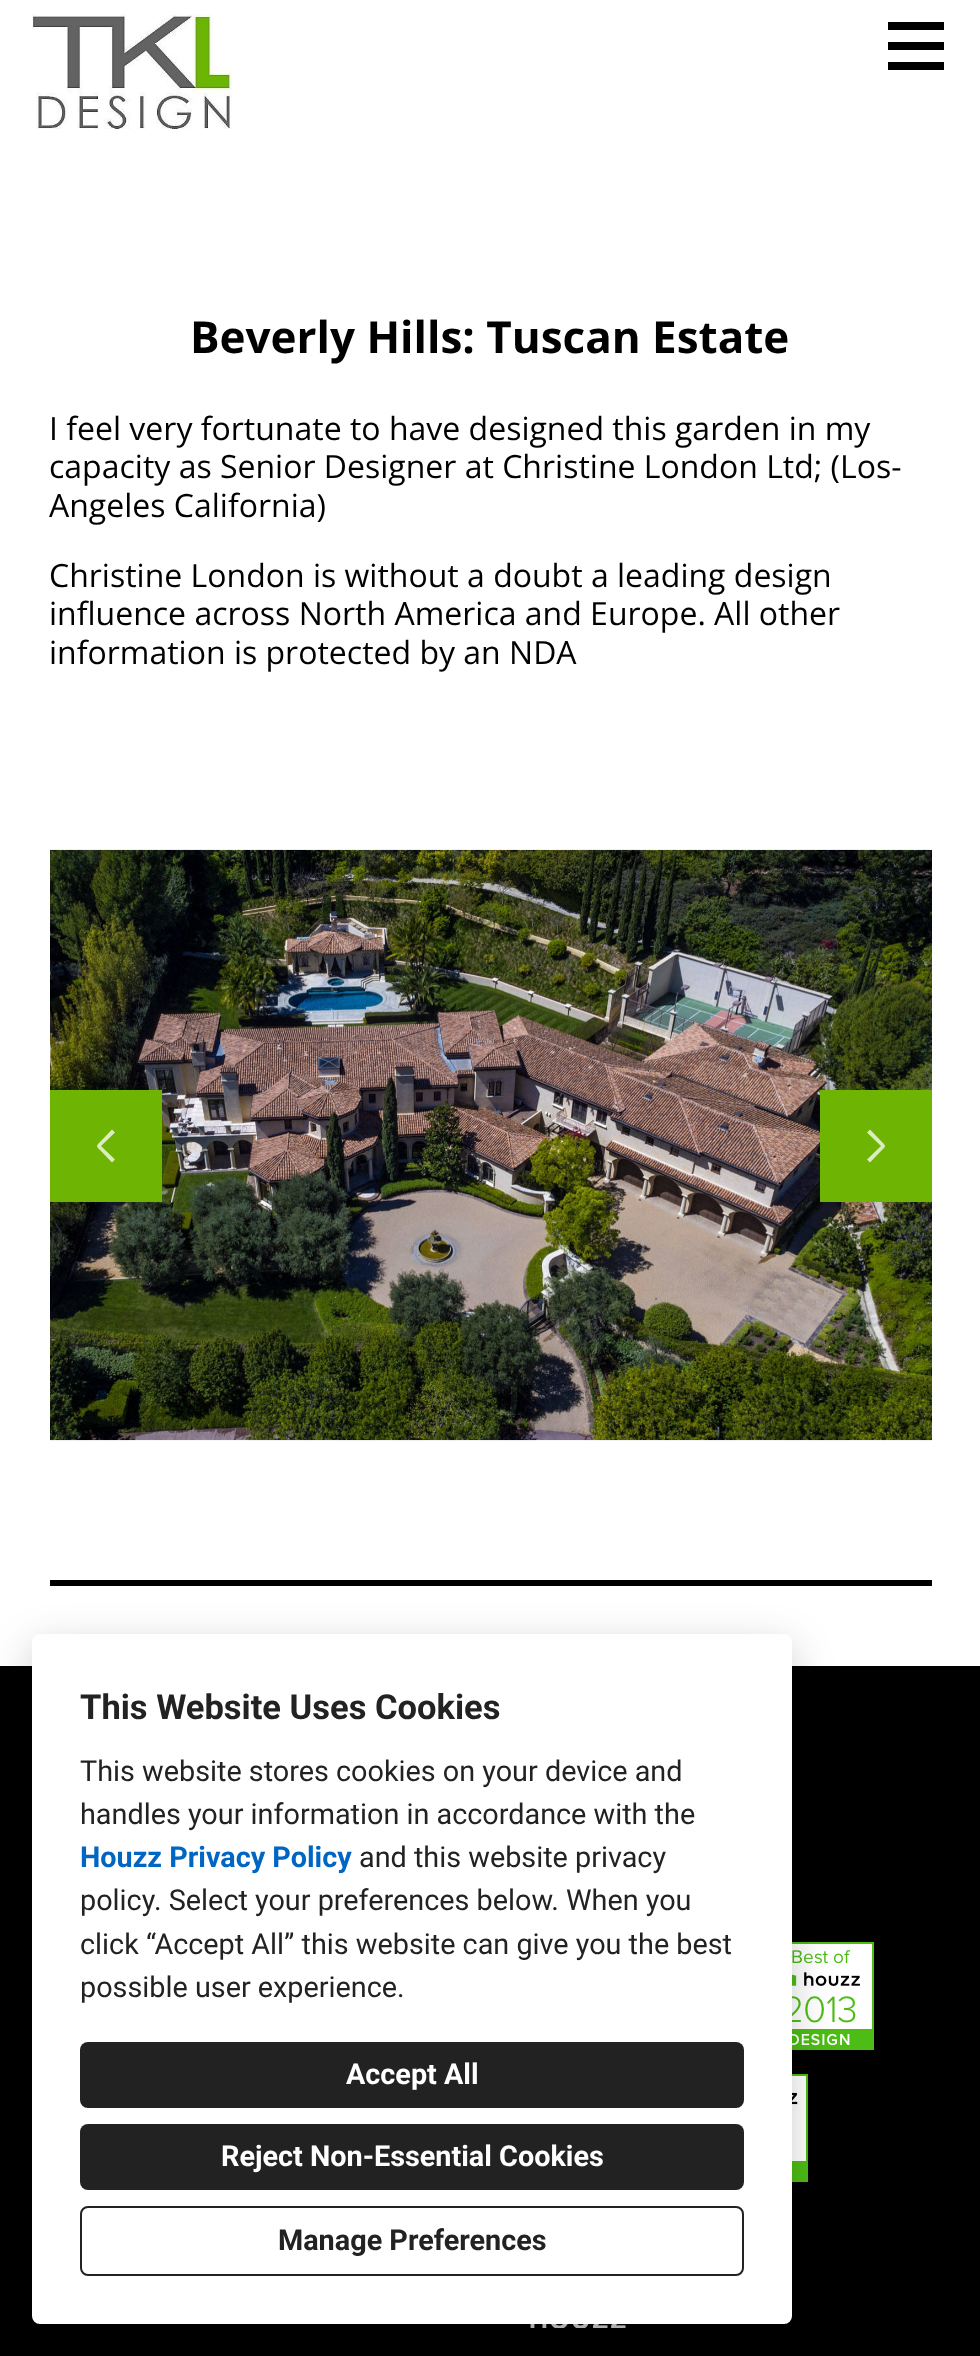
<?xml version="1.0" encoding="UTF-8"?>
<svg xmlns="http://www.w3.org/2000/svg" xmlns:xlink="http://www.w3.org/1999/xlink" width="980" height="2356">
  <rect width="100%" height="100%" fill="#ffffff" />
  <image x="32" y="14" width="200" height="115" xlink:href="image1.png" />
  <path d="M 888 22 v 8 h 56 v -8 z m 56 20 h -56 v 8 h 56 z m -56 28 h 56 v -8 h -56 z" fill="#000000" />
  <image x="50" y="849" width="882" height="592" xlink:href="image2.png" />
  <rect x="50" y="1090" width="112" height="112" fill="#6eb402" />
  <path d="M 112 1162.5 l -12 -12.5 c -4 -4 -4 -4 0 -8 l 12 -12.5 l 3 3 l -14 13.5 l 14 13.5 z" fill="#dbecc0" />
  <rect x="820" y="1090" width="112" height="112" fill="#6eb402" />
  <path d="M 870 1162.5 l 12 -12.5 c 4 -4 4 -4 0 -8 l -12 -12.5 l -3 3 l 14 13.5 l -14 13.5 z" fill="#dbecc0" />
  <rect x="50" y="1580" width="882" height="6" fill="#000000" />
  <rect y="1666" width="980" height="690" fill="#000000" />
  <image x="792" y="1942" width="82" height="108" xlink:href="image3.png" />
  <image x="792" y="2074" width="16" height="108" xlink:href="image4.png" />
  <image x="530" y="2324" width="96" height="4" xlink:href="image5.png" />
  <rect x="32" y="1646" width="760" height="690" rx="8" fill="#000000" fill-opacity="0.2" filter="blur(20px)" />
  <rect x="32" y="1634" width="760" height="690" rx="8" fill="#ffffff" />
  <rect x="80" y="2042" width="664" height="66" rx="8" fill="#222222" />
  <rect x="80" y="2124" width="664" height="66" rx="8" fill="#222222" />
  <rect x="81" y="2207" width="662" height="68" rx="7" fill="none" stroke="#222222" stroke-width="2" />
  <text x="190" y="353" style="font-family: Open Sans; font-size: 44px; font-weight: bold; fill: #000000">Beverly Hills: Tuscan Estate</text>
  <text x="49" y="440" style="font-family: Open Sans; font-size: 32px; fill: #000000">I feel very fortunate to have designed this garden in my</text>
  <text x="49" y="478" style="font-family: Open Sans; font-size: 32px; fill: #000000">capacity as Senior Designer at Christine London Ltd; (Los-</text>
  <text x="49" y="517" style="font-family: Open Sans; font-size: 32px; fill: #000000">Angeles California)</text>
  <text x="49" y="587" style="font-family: Open Sans; font-size: 32px; fill: #000000">Christine London is without a doubt a leading design</text>
  <text x="49" y="625" style="font-family: Open Sans; font-size: 32px; fill: #000000">influence across North America and Europe. All other</text>
  <text x="49" y="664" style="font-family: Open Sans; font-size: 32px; fill: #000000">information is protected by an NDA</text>
  <text x="80" y="1719" style="font-family: Roboto; font-size: 34.5px; font-weight: bold; fill: #222222">This Website Uses Cookies</text>
  <text x="80" y="1781" style="font-family: Roboto; font-size: 28.8px; fill: #222222">This website stores cookies on your device and</text>
  <text x="80" y="1824" style="font-family: Roboto; font-size: 28.8px; fill: #222222">handles your information in accordance with the</text>
  <text x="80" y="1867" style="font-family: Roboto; font-size: 28.8px; font-weight: bold; fill: #0066c3">Houzz Privacy Policy</text>
  <text x="359" y="1867" style="font-family: Roboto; font-size: 28.8px; fill: #222222">and this website privacy</text>
  <text x="80" y="1910" style="font-family: Roboto; font-size: 28.8px; fill: #222222">policy</text>
  <text x="154" y="1910" style="font-family: Roboto; font-size: 28.8px; fill: #222222">. Select your preferences below. When you</text>
  <text x="80" y="1954" style="font-family: Roboto; font-size: 28.8px; fill: #222222">click “Accept All” this website can give you the best</text>
  <text x="80" y="1997" style="font-family: Roboto; font-size: 28.8px; fill: #222222">possible user experience.</text>
  <text x="346" y="2084" style="font-family: Roboto; font-size: 28.8px; font-weight: bold; fill: #ffffff">Accept All</text>
  <text x="221" y="2166" style="font-family: Roboto; font-size: 28.8px; font-weight: bold; fill: #ffffff">Reject Non-Essential Cookies</text>
  <text x="278" y="2250" style="font-family: Roboto; font-size: 28.8px; font-weight: bold; fill: #222222">Manage Preferences</text>
</svg>
